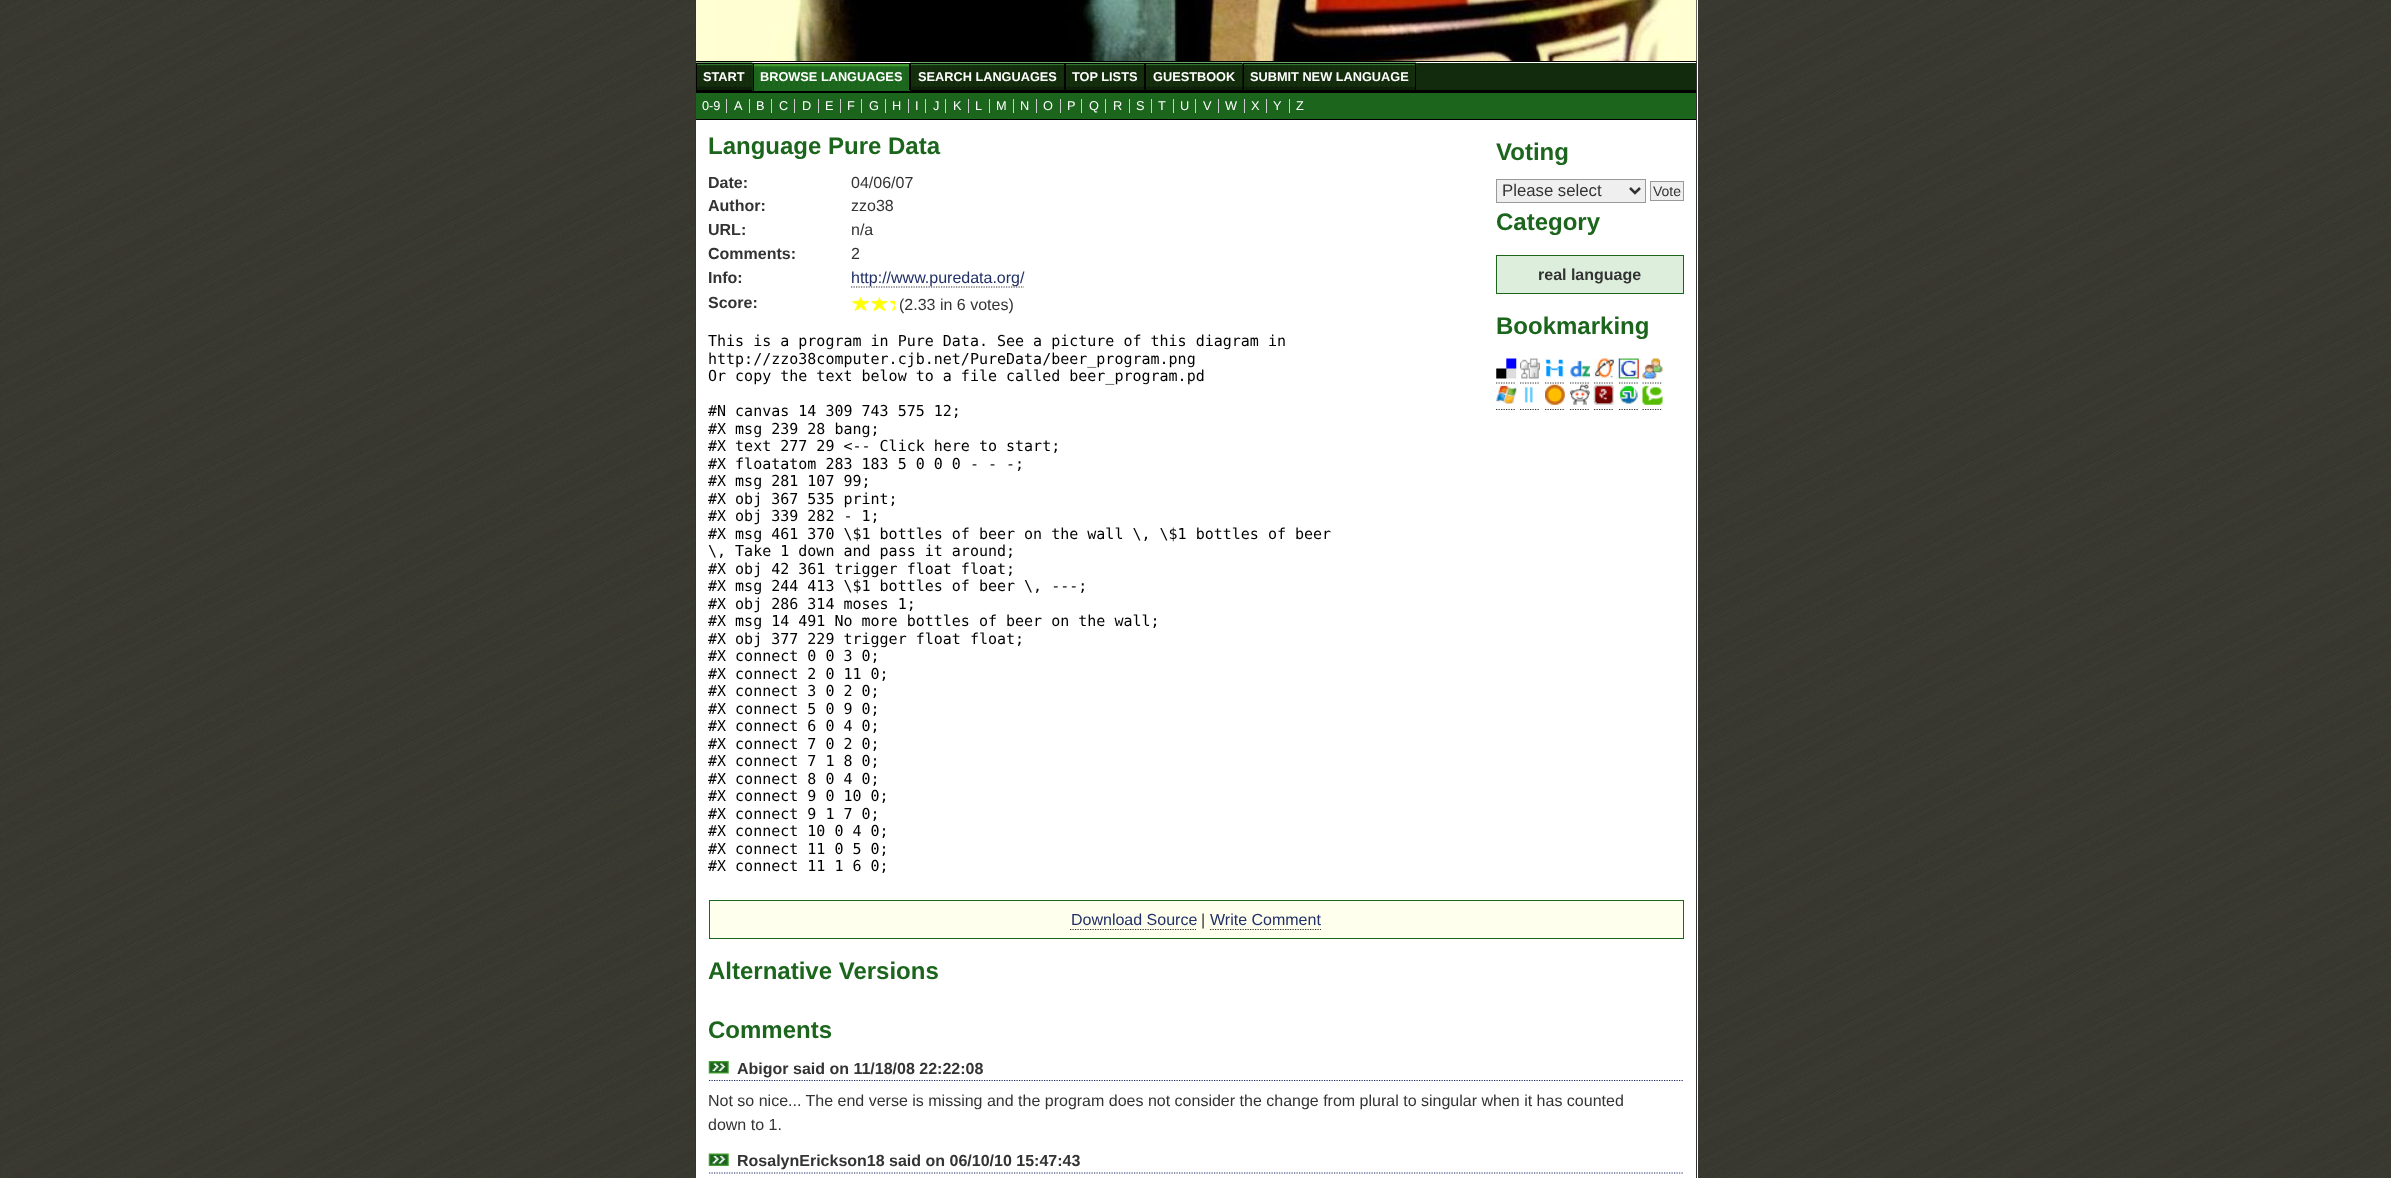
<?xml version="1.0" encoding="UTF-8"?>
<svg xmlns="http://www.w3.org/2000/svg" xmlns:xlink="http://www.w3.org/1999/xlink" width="2391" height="1178">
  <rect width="100%" height="100%" fill="#ffffff" />
  <image x="0" y="0" width="2391" height="1178" xlink:href="image1.png" />
  <rect x="696" width="1002" height="1178" fill="#ffffff" />
  <rect x="1696" width="1" height="1178" fill="#333333" />
  <rect x="695" width="1" height="1178" fill="#333333" />
  <image x="696" y="0" width="1001" height="61" xlink:href="image2.png" />
  <rect x="696" y="61" width="1000" height="1" fill="#000000" />
  <rect x="696" y="119" width="1000" height="1" fill="#000000" />
  <rect x="697" y="63" width="999" height="27" fill="#122b0c" />
  <rect x="696" y="90" width="1000" height="3" fill="#000000" />
  <image x="696" y="62" width="57" height="28" xlink:href="image3.png" />
  <rect x="696.5" y="63.5" width="56" height="27" fill="none" stroke="#000000" />
  <image x="752" y="63" width="157" height="28" xlink:href="image4.png" />
  <image x="910" y="62" width="155" height="28" xlink:href="image5.png" />
  <image x="1065" y="62" width="80" height="28" xlink:href="image6.png" />
  <image x="1145" y="62" width="98" height="28" xlink:href="image7.png" />
  <rect x="1145.5" y="63.5" width="97" height="27" fill="none" stroke="#000000" />
  <image x="1242" y="62" width="175" height="28" xlink:href="image8.png" />
  <rect x="753" y="63" width="157" height="1" fill="#000000" />
  <rect x="909" y="63" width="1" height="28" fill="#000000" />
  <rect x="753" y="90" width="157" height="1" fill="#1b651c" />
  <rect x="753" y="63" width="1" height="28" fill="#000000" />
  <rect x="910.5" y="63.5" width="154" height="27" fill="none" stroke="#000000" />
  <rect x="1065.5" y="63.5" width="79" height="27" fill="none" stroke="#000000" />
  <rect x="1243.5" y="63.5" width="172" height="27" fill="none" stroke="#000000" />
  <rect x="696" y="93" width="1000" height="26" fill="#1b651c" />
  <rect x="726" y="99" width="1" height="14" fill="#cccccc" />
  <rect x="749" y="99" width="1" height="14" fill="#cccccc" />
  <rect x="771" y="99" width="1" height="14" fill="#cccccc" />
  <rect x="794" y="99" width="1" height="14" fill="#cccccc" />
  <rect x="818" y="99" width="1" height="14" fill="#cccccc" />
  <rect x="840" y="99" width="1" height="14" fill="#cccccc" />
  <rect x="861" y="99" width="1" height="14" fill="#cccccc" />
  <rect x="885" y="99" width="1" height="14" fill="#cccccc" />
  <rect x="908" y="99" width="1" height="14" fill="#cccccc" />
  <rect x="925" y="99" width="1" height="14" fill="#cccccc" />
  <rect x="945" y="99" width="1" height="14" fill="#cccccc" />
  <rect x="968" y="99" width="1" height="14" fill="#cccccc" />
  <rect x="989" y="99" width="1" height="14" fill="#cccccc" />
  <rect x="1013" y="99" width="1" height="14" fill="#cccccc" />
  <rect x="1036" y="99" width="1" height="14" fill="#cccccc" />
  <rect x="1060" y="99" width="1" height="14" fill="#cccccc" />
  <rect x="1081" y="99" width="1" height="14" fill="#cccccc" />
  <rect x="1105" y="99" width="1" height="14" fill="#cccccc" />
  <rect x="1129" y="99" width="1" height="14" fill="#cccccc" />
  <rect x="1151" y="99" width="1" height="14" fill="#cccccc" />
  <rect x="1173" y="99" width="1" height="14" fill="#cccccc" />
  <rect x="1195" y="99" width="1" height="14" fill="#cccccc" />
  <rect x="1218" y="99" width="1" height="14" fill="#cccccc" />
  <rect x="1244" y="99" width="1" height="14" fill="#cccccc" />
  <rect x="1266" y="99" width="1" height="14" fill="#cccccc" />
  <rect x="1289" y="99" width="1" height="14" fill="#cccccc" />
  <rect x="1496.5" y="179.5" width="149" height="23" fill="#efefef" stroke="#999999" />
  <path d="M 1630 188 l 5 5 l 5 -5" fill="none" stroke="#333333" stroke-width="2.5" />
  <rect x="1650.5" y="181.5" width="33" height="19" fill="#efefef" stroke="#999999" />
  <rect x="1496.5" y="255.5" width="187" height="38" fill="#ddeedd" stroke="#1b651c" />
  <image x="1496" y="358" width="21" height="21" xlink:href="image9.png" />
  <image x="1520" y="358" width="20" height="21" xlink:href="image10.png" />
  <image x="1545" y="358" width="19" height="20" xlink:href="image11.png" />
  <image x="1570" y="360" width="20" height="18" xlink:href="image12.png" />
  <image x="1594" y="358" width="20" height="20" xlink:href="image13.png" />
  <image x="1618" y="358" width="21" height="21" xlink:href="image14.png" />
  <image x="1642" y="358" width="21" height="21" xlink:href="image15.png" />
  <path d="M 1496 383 h 20" fill="none" stroke="#333333" stroke-width="1.2" stroke-dasharray="1.25 1.25" />
  <path d="M 1520 383 h 20" fill="none" stroke="#333333" stroke-width="1.2" stroke-dasharray="1.25 1.25" />
  <path d="M 1545 383 h 20" fill="none" stroke="#333333" stroke-width="1.2" stroke-dasharray="1.25 1.25" />
  <path d="M 1570 383 h 20" fill="none" stroke="#333333" stroke-width="1.2" stroke-dasharray="1.25 1.25" />
  <path d="M 1594 383 h 20" fill="none" stroke="#333333" stroke-width="1.2" stroke-dasharray="1.25 1.25" />
  <path d="M 1619 383 h 20" fill="none" stroke="#333333" stroke-width="1.2" stroke-dasharray="1.25 1.25" />
  <path d="M 1642.5 383 h 20" fill="none" stroke="#333333" stroke-width="1.2" stroke-dasharray="1.25 1.25" />
  <image x="1496" y="385" width="21" height="19" xlink:href="image16.png" />
  <image x="1524" y="387" width="9" height="16" xlink:href="image17.png" />
  <image x="1545" y="384" width="20" height="21" xlink:href="image18.png" />
  <image x="1570" y="384" width="20" height="21" xlink:href="image19.png" />
  <image x="1593" y="384" width="21" height="21" xlink:href="image20.png" />
  <image x="1619" y="385" width="19" height="19" xlink:href="image21.png" />
  <image x="1642" y="385" width="21" height="20" xlink:href="image22.png" />
  <path d="M 1496 409.5 h 20" fill="none" stroke="#333333" stroke-width="1.2" stroke-dasharray="1.25 1.25" />
  <path d="M 1520 409.5 h 20" fill="none" stroke="#333333" stroke-width="1.2" stroke-dasharray="1.25 1.25" />
  <path d="M 1545 409.5 h 20" fill="none" stroke="#333333" stroke-width="1.2" stroke-dasharray="1.25 1.25" />
  <path d="M 1570 409.5 h 20" fill="none" stroke="#333333" stroke-width="1.2" stroke-dasharray="1.25 1.25" />
  <path d="M 1594 409.5 h 20" fill="none" stroke="#333333" stroke-width="1.2" stroke-dasharray="1.25 1.25" />
  <path d="M 1619 409.5 h 20" fill="none" stroke="#333333" stroke-width="1.2" stroke-dasharray="1.25 1.25" />
  <path d="M 1642.5 409.5 h 20" fill="none" stroke="#333333" stroke-width="1.2" stroke-dasharray="1.25 1.25" />
  <path d="M 851 287 h 173" fill="none" stroke="#333333" stroke-width="1.2" stroke-dasharray="1.25 1.25" />
  <image x="852" y="297" width="43" height="15" xlink:href="image23.png" />
  <rect x="709.5" y="900.5" width="974" height="38" fill="#ffffee" stroke="#1b651c" />
  <path d="M 1070 929.5 h 126" fill="none" stroke="#333333" stroke-width="1.2" stroke-dasharray="1.25 1.25" />
  <path d="M 1210 929.5 h 111" fill="none" stroke="#333333" stroke-width="1.2" stroke-dasharray="1.25 1.25" />
  <path d="M 709 1080.5 h 975" fill="none" stroke="#202f66" stroke-width="1.2" stroke-dasharray="1.25 1.25" />
  <image x="708" y="1061" width="21" height="13" xlink:href="image24.png" />
  <path d="M 709 1173 h 975" fill="none" stroke="#202f66" stroke-width="1.2" stroke-dasharray="1.25 1.25" />
  <image x="708" y="1153" width="21" height="13" xlink:href="image25.png" />
  <text x="703" y="81" style="font-family: Liberation Sans; font-size: 12.75px; font-weight: bold; fill: #ffffff">START</text>
  <text x="760" y="81" style="font-family: Liberation Sans; font-size: 12.75px; font-weight: bold; fill: #ffffff">BROWSE LANGUAGES</text>
  <text x="918" y="81" style="font-family: Liberation Sans; font-size: 12.75px; font-weight: bold; fill: #ffffff">SEARCH LANGUAGES</text>
  <text x="1072" y="81" style="font-family: Liberation Sans; font-size: 12.75px; font-weight: bold; fill: #ffffff">TOP LISTS</text>
  <text x="1153" y="81" style="font-family: Liberation Sans; font-size: 12.75px; font-weight: bold; fill: #ffffff">GUESTBOOK</text>
  <text x="1250" y="81" style="font-family: Liberation Sans; font-size: 12.75px; font-weight: bold; fill: #ffffff">SUBMIT NEW LANGUAGE</text>
  <text x="702" y="110" style="font-family: Liberation Sans; font-size: 12.75px; fill: #ffffff">0-9</text>
  <text x="734" y="110" style="font-family: Liberation Sans; font-size: 12.75px; fill: #ffffff">A</text>
  <text x="756" y="110" style="font-family: Liberation Sans; font-size: 12.75px; fill: #ffffff">B</text>
  <text x="779" y="110" style="font-family: Liberation Sans; font-size: 12.75px; fill: #ffffff">C</text>
  <text x="802" y="110" style="font-family: Liberation Sans; font-size: 12.75px; fill: #ffffff">D</text>
  <text x="825" y="110" style="font-family: Liberation Sans; font-size: 12.75px; fill: #ffffff">E</text>
  <text x="847" y="110" style="font-family: Liberation Sans; font-size: 12.75px; fill: #ffffff">F</text>
  <text x="869" y="110" style="font-family: Liberation Sans; font-size: 12.75px; fill: #ffffff">G</text>
  <text x="892" y="110" style="font-family: Liberation Sans; font-size: 12.75px; fill: #ffffff">H</text>
  <text x="915" y="110" style="font-family: Liberation Sans; font-size: 12.75px; fill: #ffffff">I</text>
  <text x="933" y="110" style="font-family: Liberation Sans; font-size: 12.75px; fill: #ffffff">J</text>
  <text x="953" y="110" style="font-family: Liberation Sans; font-size: 12.75px; fill: #ffffff">K</text>
  <text x="975" y="110" style="font-family: Liberation Sans; font-size: 12.75px; fill: #ffffff">L</text>
  <text x="996" y="110" style="font-family: Liberation Sans; font-size: 12.75px; fill: #ffffff">M</text>
  <text x="1020" y="110" style="font-family: Liberation Sans; font-size: 12.75px; fill: #ffffff">N</text>
  <text x="1043" y="110" style="font-family: Liberation Sans; font-size: 12.75px; fill: #ffffff">O</text>
  <text x="1067" y="110" style="font-family: Liberation Sans; font-size: 12.75px; fill: #ffffff">P</text>
  <text x="1089" y="110" style="font-family: Liberation Sans; font-size: 12.75px; fill: #ffffff">Q</text>
  <text x="1113" y="110" style="font-family: Liberation Sans; font-size: 12.75px; fill: #ffffff">R</text>
  <text x="1136" y="110" style="font-family: Liberation Sans; font-size: 12.75px; fill: #ffffff">S</text>
  <text x="1158" y="110" style="font-family: Liberation Sans; font-size: 12.75px; fill: #ffffff">T</text>
  <text x="1180" y="110" style="font-family: Liberation Sans; font-size: 12.75px; fill: #ffffff">U</text>
  <text x="1203" y="110" style="font-family: Liberation Sans; font-size: 12.75px; fill: #ffffff">V</text>
  <text x="1225" y="110" style="font-family: Liberation Sans; font-size: 12.75px; fill: #ffffff">W</text>
  <text x="1251" y="110" style="font-family: Liberation Sans; font-size: 12.75px; fill: #ffffff">X</text>
  <text x="1273" y="110" style="font-family: Liberation Sans; font-size: 12.75px; fill: #ffffff">Y</text>
  <text x="1296" y="110" style="font-family: Liberation Sans; font-size: 12.75px; fill: #ffffff">Z</text>
  <text x="708" y="154" style="font-family: Liberation Sans; font-size: 24px; font-weight: bold; fill: #1b651c">Language Pure Data</text>
  <text x="1496" y="160" style="font-family: Liberation Sans; font-size: 24px; font-weight: bold; fill: #1b651c">Voting</text>
  <text x="1502" y="196" style="font-family: Liberation Sans; font-size: 16.75px; fill: #333333">Please select</text>
  <text x="1653" y="196" style="font-family: Liberation Sans; font-size: 14px; fill: #333333">Vote</text>
  <text x="1496" y="230" style="font-family: Liberation Sans; font-size: 24px; font-weight: bold; fill: #1b651c">Category</text>
  <text x="1538" y="280" style="font-family: Liberation Sans; font-size: 16px; font-weight: bold; fill: #333333">real language</text>
  <text x="1496" y="334" style="font-family: Liberation Sans; font-size: 24px; font-weight: bold; fill: #1b651c">Bookmarking</text>
  <text x="708" y="188" style="font-family: Liberation Sans; font-size: 16px; font-weight: bold; fill: #333333">Date:</text>
  <text x="851" y="188" style="font-family: Liberation Sans; font-size: 16px; fill: #333333">04/06/07</text>
  <text x="708" y="211" style="font-family: Liberation Sans; font-size: 16px; font-weight: bold; fill: #333333">Author:</text>
  <text x="851" y="211" style="font-family: Liberation Sans; font-size: 16px; fill: #333333">zzo38</text>
  <text x="708" y="235" style="font-family: Liberation Sans; font-size: 16px; font-weight: bold; fill: #333333">URL:</text>
  <text x="851" y="235" style="font-family: Liberation Sans; font-size: 16px; fill: #333333">n/a</text>
  <text x="708" y="259" style="font-family: Liberation Sans; font-size: 16px; font-weight: bold; fill: #333333">Comments:</text>
  <text x="851" y="259" style="font-family: Liberation Sans; font-size: 16px; fill: #333333">2</text>
  <text x="708" y="283" style="font-family: Liberation Sans; font-size: 16px; font-weight: bold; fill: #333333">Info:</text>
  <text x="851" y="283" style="font-family: Liberation Sans; font-size: 16px; fill: #202f66">http://www.puredata.org/</text>
  <text x="708" y="308" style="font-family: Liberation Sans; font-size: 16px; font-weight: bold; fill: #333333">Score:</text>
  <text x="899" y="310" style="font-family: Liberation Sans; font-size: 16px; fill: #333333">(2.33 in 6 votes)</text>
  <text x="708" y="346" style="font-family: DejaVu Sans Mono; font-size: 15px; fill: #000000">This is a program in Pure Data. See a picture of this diagram in</text>
  <text x="708" y="364" style="font-family: DejaVu Sans Mono; font-size: 15px; fill: #000000">http://zzo38computer.cjb.net/PureData/beer_program.png</text>
  <text x="708" y="381" style="font-family: DejaVu Sans Mono; font-size: 15px; fill: #000000">Or copy the text below to a file called beer_program.pd</text>
  <text x="708" y="416" style="font-family: DejaVu Sans Mono; font-size: 15px; fill: #000000">#N canvas 14 309 743 575 12;</text>
  <text x="708" y="434" style="font-family: DejaVu Sans Mono; font-size: 15px; fill: #000000">#X msg 239 28 bang;</text>
  <text x="708" y="451" style="font-family: DejaVu Sans Mono; font-size: 15px; fill: #000000">#X text 277 29 &lt;-- Click here to start;</text>
  <text x="708" y="469" style="font-family: DejaVu Sans Mono; font-size: 15px; fill: #000000">#X floatatom 283 183 5 0 0 0 - - -;</text>
  <text x="708" y="486" style="font-family: DejaVu Sans Mono; font-size: 15px; fill: #000000">#X msg 281 107 99;</text>
  <text x="708" y="504" style="font-family: DejaVu Sans Mono; font-size: 15px; fill: #000000">#X obj 367 535 print;</text>
  <text x="708" y="521" style="font-family: DejaVu Sans Mono; font-size: 15px; fill: #000000">#X obj 339 282 - 1;</text>
  <text x="708" y="539" style="font-family: DejaVu Sans Mono; font-size: 15px; fill: #000000">#X msg 461 370 \$1 bottles of beer on the wall \, \$1 bottles of beer</text>
  <text x="708" y="556" style="font-family: DejaVu Sans Mono; font-size: 15px; fill: #000000">\, Take 1 down and pass it around;</text>
  <text x="708" y="574" style="font-family: DejaVu Sans Mono; font-size: 15px; fill: #000000">#X obj 42 361 trigger float float;</text>
  <text x="708" y="591" style="font-family: DejaVu Sans Mono; font-size: 15px; fill: #000000">#X msg 244 413 \$1 bottles of beer \, ---;</text>
  <text x="708" y="609" style="font-family: DejaVu Sans Mono; font-size: 15px; fill: #000000">#X obj 286 314 moses 1;</text>
  <text x="708" y="626" style="font-family: DejaVu Sans Mono; font-size: 15px; fill: #000000">#X msg 14 491 No more bottles of beer on the wall;</text>
  <text x="708" y="644" style="font-family: DejaVu Sans Mono; font-size: 15px; fill: #000000">#X obj 377 229 trigger float float;</text>
  <text x="708" y="661" style="font-family: DejaVu Sans Mono; font-size: 15px; fill: #000000">#X connect 0 0 3 0;</text>
  <text x="708" y="679" style="font-family: DejaVu Sans Mono; font-size: 15px; fill: #000000">#X connect 2 0 11 0;</text>
  <text x="708" y="696" style="font-family: DejaVu Sans Mono; font-size: 15px; fill: #000000">#X connect 3 0 2 0;</text>
  <text x="708" y="714" style="font-family: DejaVu Sans Mono; font-size: 15px; fill: #000000">#X connect 5 0 9 0;</text>
  <text x="708" y="731" style="font-family: DejaVu Sans Mono; font-size: 15px; fill: #000000">#X connect 6 0 4 0;</text>
  <text x="708" y="749" style="font-family: DejaVu Sans Mono; font-size: 15px; fill: #000000">#X connect 7 0 2 0;</text>
  <text x="708" y="766" style="font-family: DejaVu Sans Mono; font-size: 15px; fill: #000000">#X connect 7 1 8 0;</text>
  <text x="708" y="784" style="font-family: DejaVu Sans Mono; font-size: 15px; fill: #000000">#X connect 8 0 4 0;</text>
  <text x="708" y="801" style="font-family: DejaVu Sans Mono; font-size: 15px; fill: #000000">#X connect 9 0 10 0;</text>
  <text x="708" y="819" style="font-family: DejaVu Sans Mono; font-size: 15px; fill: #000000">#X connect 9 1 7 0;</text>
  <text x="708" y="836" style="font-family: DejaVu Sans Mono; font-size: 15px; fill: #000000">#X connect 10 0 4 0;</text>
  <text x="708" y="854" style="font-family: DejaVu Sans Mono; font-size: 15px; fill: #000000">#X connect 11 0 5 0;</text>
  <text x="708" y="871" style="font-family: DejaVu Sans Mono; font-size: 15px; fill: #000000">#X connect 11 1 6 0;</text>
  <text x="1071" y="925" style="font-family: Liberation Sans; font-size: 16px; fill: #202f66">Download Source</text>
  <text x="1201" y="925" style="font-family: Liberation Sans; font-size: 16px; fill: #333333">|</text>
  <text x="1210" y="925" style="font-family: Liberation Sans; font-size: 16px; fill: #202f66">Write Comment</text>
  <text x="708" y="979" style="font-family: Liberation Sans; font-size: 24px; font-weight: bold; fill: #1b651c">Alternative Versions</text>
  <text x="708" y="1038" style="font-family: Liberation Sans; font-size: 24px; font-weight: bold; fill: #1b651c">Comments</text>
  <text x="737" y="1074" style="font-family: Liberation Sans; font-size: 16px; font-weight: bold; fill: #333333">Abigor said on 11/18/08 22:22:08</text>
  <text x="708" y="1106" style="font-family: Liberation Sans; font-size: 16px; fill: #333333">Not so nice... The end verse is missing and the program does not consider the change from plural to singular when it has counted</text>
  <text x="708" y="1130" style="font-family: Liberation Sans; font-size: 16px; fill: #333333">down to 1.</text>
  <text x="737" y="1166" style="font-family: Liberation Sans; font-size: 16px; font-weight: bold; fill: #333333">RosalynErickson18 said on 06/10/10 15:47:43</text>
</svg>
